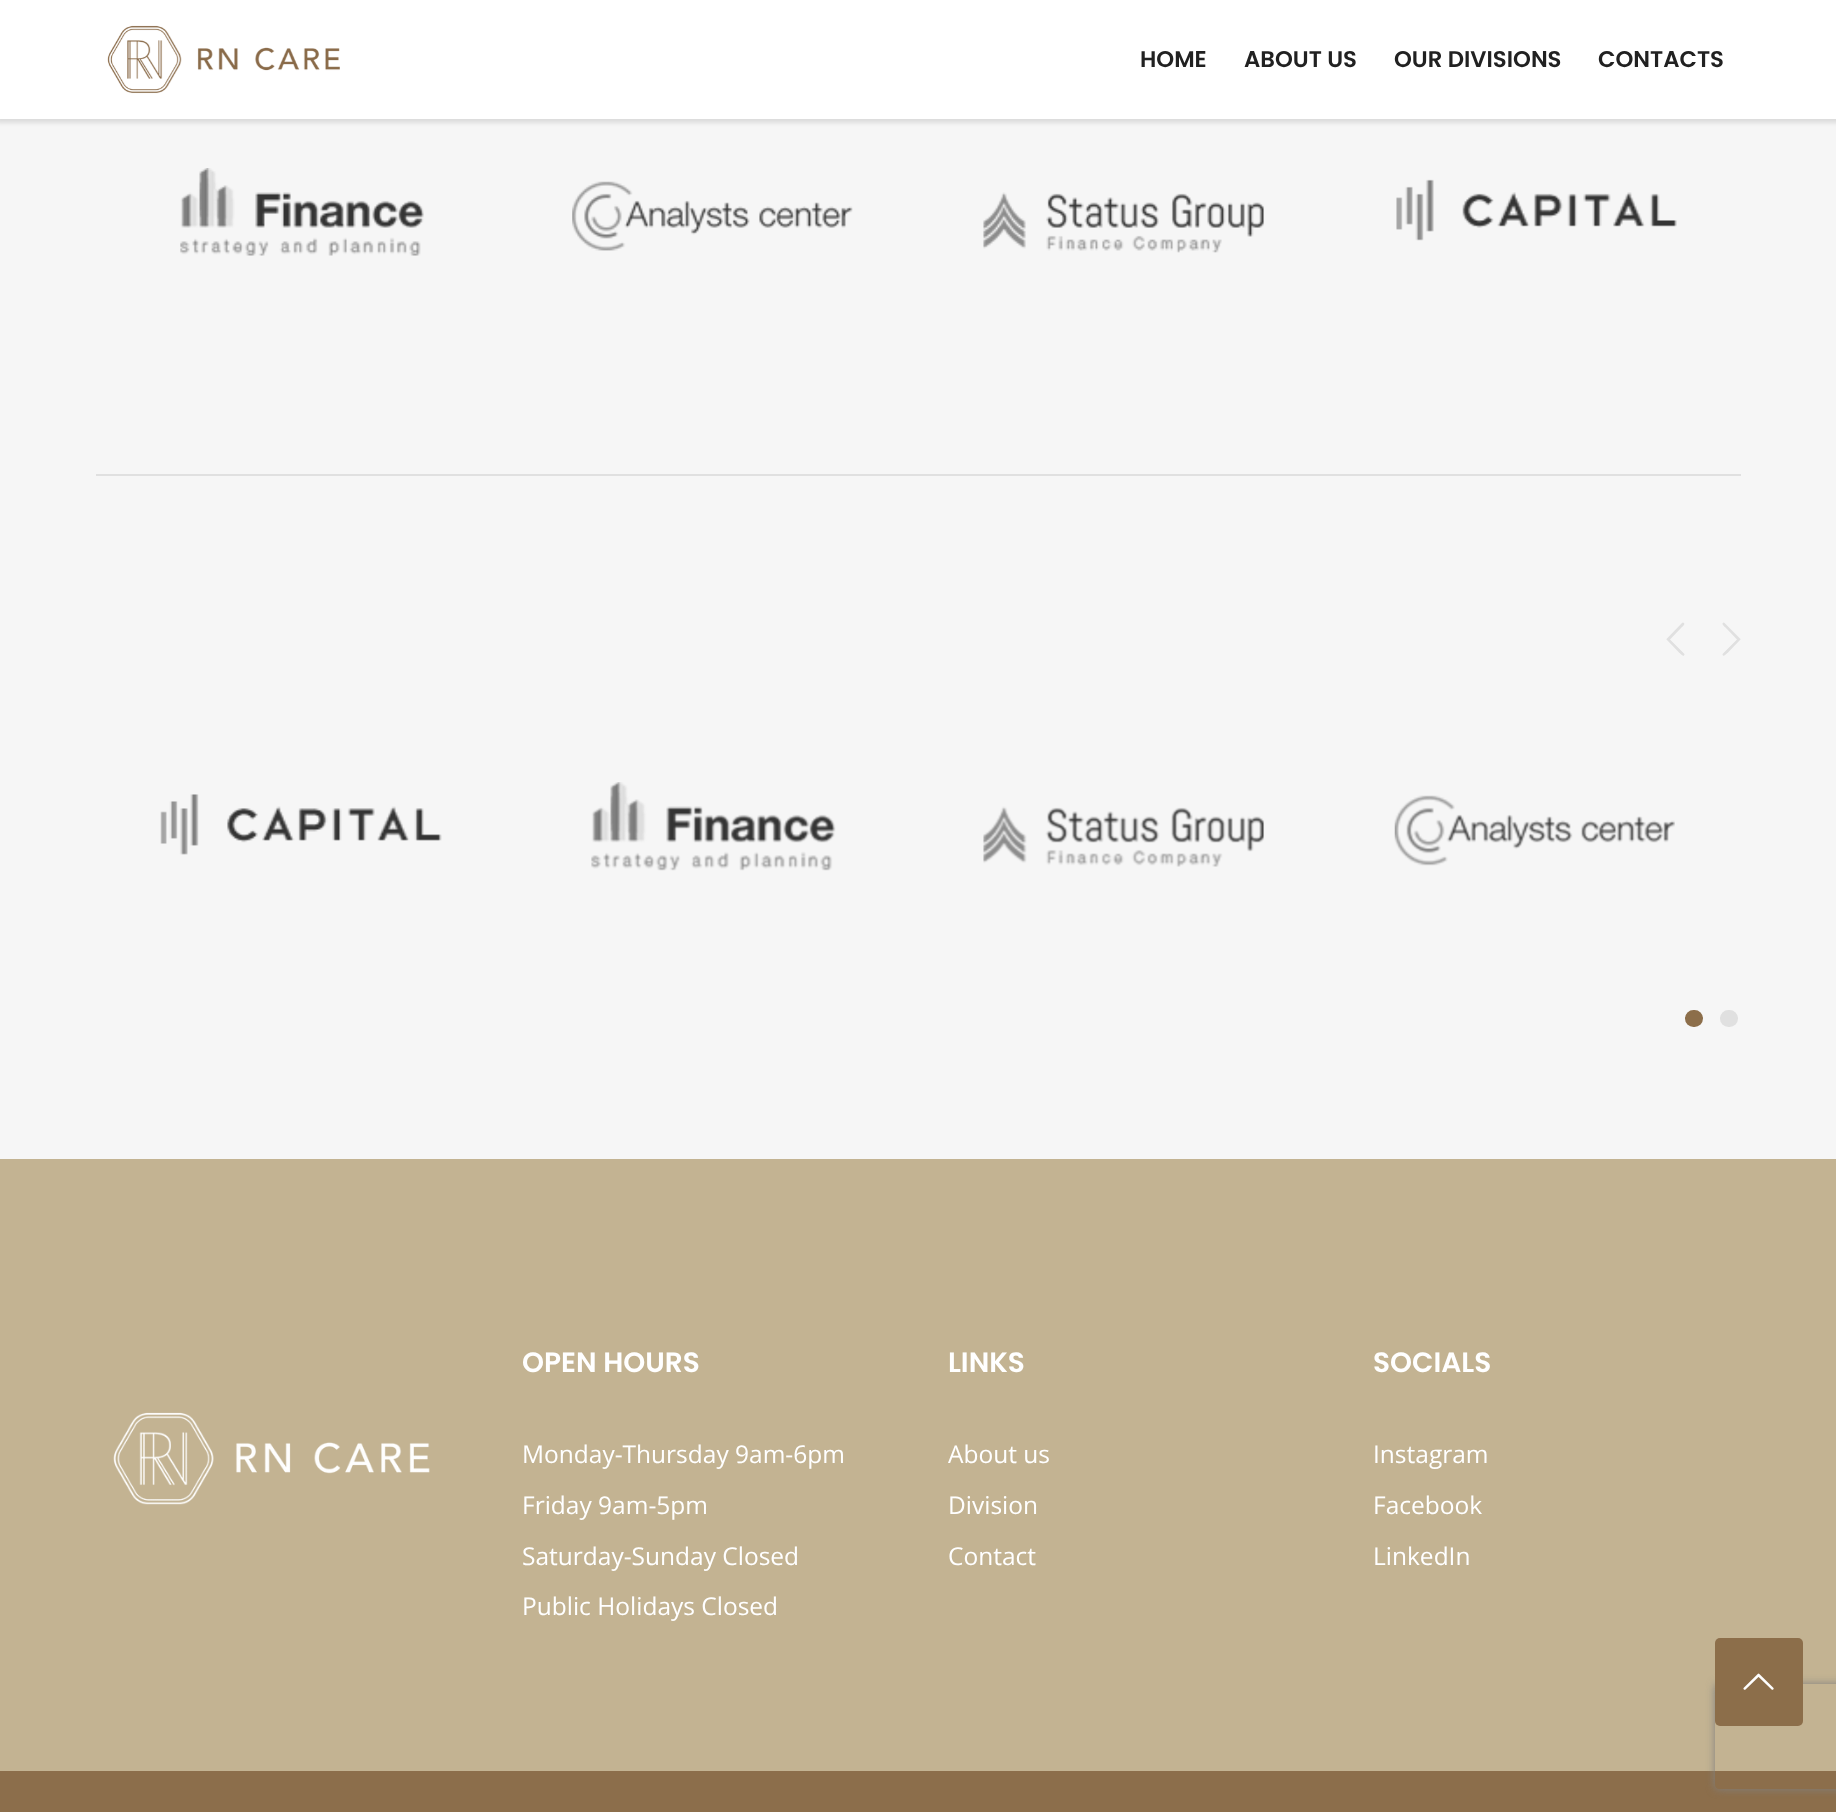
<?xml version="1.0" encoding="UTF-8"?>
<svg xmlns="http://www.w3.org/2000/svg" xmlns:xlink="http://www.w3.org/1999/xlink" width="1836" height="1812">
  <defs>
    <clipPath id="clip1"><path d="M 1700 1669 h 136 v 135 h -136 z m 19 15 h 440 c 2 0 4 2 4 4 v 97 c 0 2 -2 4 -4 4 h -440 c -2 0 -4 -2 -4 -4 v -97 c 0 -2 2 -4 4 -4 z" clip-rule="evenodd" /></clipPath>
  </defs>
  <rect width="100%" height="100%" fill="#f6f6f6" />
  <rect x="-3" y="-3" width="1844" height="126" fill="#000000" fill-opacity="0.1" filter="blur(2px)" />
  <rect width="1836" height="119" fill="#ffffff" />
  <image x="107" y="25" width="233" height="69" xlink:href="image1.png" />
  <image x="180" y="168" width="244" height="88" xlink:href="image2.png" />
  <image x="572" y="181" width="281" height="70" xlink:href="image3.png" />
  <image x="983" y="192" width="281" height="61" xlink:href="image4.png" />
  <image x="1396" y="179" width="281" height="62" xlink:href="image5.png" />
  <rect x="96" y="474" width="1645" height="2" fill="#e0e0e0" />
  <image x="160" y="794" width="282" height="61" xlink:href="image6.png" />
  <image x="591" y="782" width="245" height="89" xlink:href="image7.png" />
  <image x="983" y="806" width="281" height="61" xlink:href="image8.png" />
  <image x="1394" y="795" width="281" height="71" xlink:href="image9.png" />
  <path d="M 1684 653.5 l 0.5 1 c -1 3.5 -4.5 -1.5 -5 -1.5 l -13 -13.5 v -0.5 l 15.5 -16 l 1 -0.5 c 3.5 1 -1 4.5 -1.5 5 l -11.5 12 z" fill="#e0e0e0" />
  <path d="M 1723 653.5 l 14 -14 l -11.5 -12 c -0.5 -0.5 -5 -4 -2 -5 l 1 0.5 l 16 16 v 0.5 l -13 13.5 c -0.5 0 -4 5 -5 1.5 z" fill="#e0e0e0" />
  <rect x="1685" y="1010" width="18" height="17" rx="8.5" fill="#8c6e4a" />
  <rect x="1720" y="1010" width="18" height="17" rx="8.5" fill="#e0e0e0" />
  <rect y="1159" width="1836" height="612" fill="#c3b392" />
  <image x="113" y="1412" width="317" height="93" xlink:href="image10.png" />
  <rect y="1771" width="1836" height="41" fill="#8c6e4b" />
  <g clip-path="url(#clip1)">
    <rect x="1715" y="1684" width="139" height="105" rx="4" fill="#808080" filter="blur(4.5px)" />
  </g>
  <rect x="1715" y="1638" width="88" height="88" rx="5" fill="#8c6e4a" />
  <image x="1743" y="1673" width="31" height="17" xlink:href="image11.png" />
  <text x="1140" y="67" style="font-family: Poppins; font-size: 22.75px; font-weight: 600; fill: #212121">HOME</text>
  <text x="1244" y="67" style="font-family: Poppins; font-size: 22.75px; font-weight: 600; fill: #212121">ABOUT US</text>
  <text x="1394" y="67" style="font-family: Poppins; font-size: 22.75px; font-weight: 600; fill: #212121">OUR DIVISIONS</text>
  <text x="1598" y="67" style="font-family: Poppins; font-size: 22.75px; font-weight: 600; fill: #212121">CONTACTS</text>
  <text x="522" y="1372" style="font-family: Poppins; font-size: 28px; font-weight: 600; fill: #ffffff">OPEN HOURS</text>
  <text x="522" y="1463" style="font-family: Open Sans; font-size: 24.5px; fill: #ffffff">Monday-Thursday 9am-6pm</text>
  <text x="522" y="1514" style="font-family: Open Sans; font-size: 24.5px; fill: #ffffff">Friday 9am-5pm</text>
  <text x="522" y="1565" style="font-family: Open Sans; font-size: 24.5px; fill: #ffffff">Saturday-Sunday Closed</text>
  <text x="522" y="1615" style="font-family: Open Sans; font-size: 24.5px; fill: #ffffff">Public Holidays Closed</text>
  <text x="948" y="1372" style="font-family: Poppins; font-size: 28px; font-weight: 600; fill: #ffffff">LINKS</text>
  <text x="948" y="1463" style="font-family: Open Sans; font-size: 24.5px; fill: #ffffff">About us</text>
  <text x="948" y="1514" style="font-family: Open Sans; font-size: 24.5px; fill: #ffffff">Division</text>
  <text x="948" y="1565" style="font-family: Open Sans; font-size: 24.5px; fill: #ffffff">Contact</text>
  <text x="1373" y="1372" style="font-family: Poppins; font-size: 28px; font-weight: 600; fill: #ffffff">SOCIALS</text>
  <text x="1373" y="1463" style="font-family: Open Sans; font-size: 24.5px; fill: #ffffff">Instagram</text>
  <text x="1373" y="1514" style="font-family: Open Sans; font-size: 24.5px; fill: #ffffff">Facebook</text>
  <text x="1373" y="1565" style="font-family: Open Sans; font-size: 24.5px; fill: #ffffff">LinkedIn</text>
</svg>
